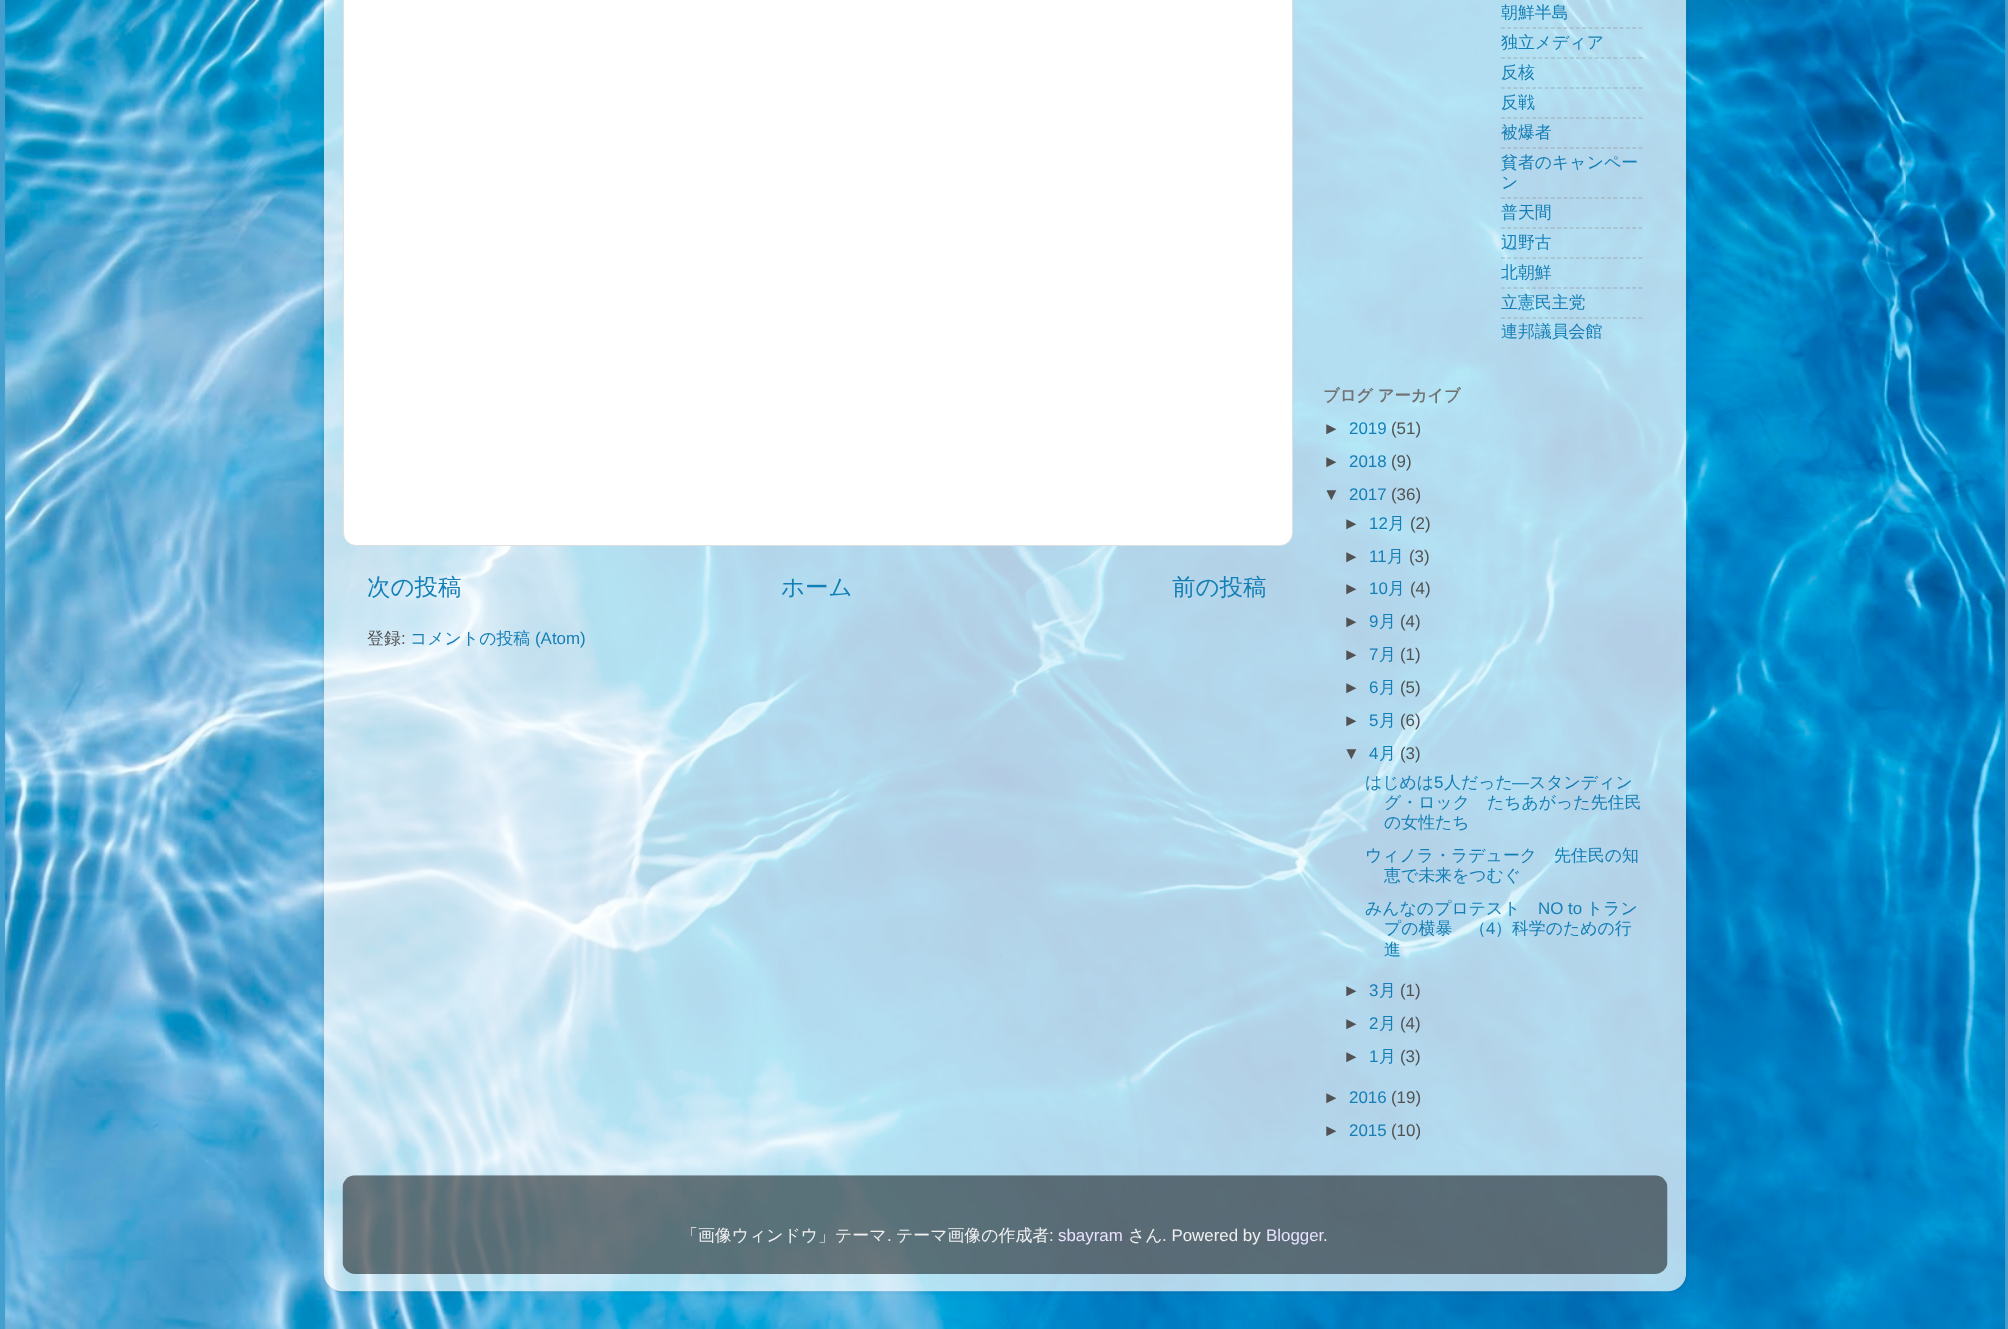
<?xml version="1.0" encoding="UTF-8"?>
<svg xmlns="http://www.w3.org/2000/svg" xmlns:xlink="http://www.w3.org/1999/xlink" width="2008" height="1329">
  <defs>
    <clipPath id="clip1"><path d="M 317 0 h 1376 v 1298 h -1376 z m 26 -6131 h 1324 c 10.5 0 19 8.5 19 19 v 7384 c 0 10.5 -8.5 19 -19 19 h -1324 c -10.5 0 -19 -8.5 -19 -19 v -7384 c 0 -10.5 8.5 -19 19 -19 z" clip-rule="evenodd" /></clipPath>
  </defs>
  <rect width="100%" height="100%" fill="#449fce" />
  <image x="4" y="0" width="2002" height="1329" xlink:href="image1.png" />
  <g clip-path="url(#clip1)">
    <rect x="324" y="-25" width="1362" height="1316" rx="19" fill="#000000" fill-opacity="0.15" filter="blur(2px)" />
  </g>
  <image x="323" y="0" width="1364" height="1292" xlink:href="image2.png" />
  <rect x="343.5" y="-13.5" width="949" height="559" rx="12.5" fill="#ffffff" stroke="#dfdfdf" />
  <path d="M 1501 28 h 141.5" fill="none" stroke="#808080" stroke-opacity="0.5" stroke-width="1.2" stroke-dasharray="3.75 2.5" />
  <path d="M 1501 58 h 141.5" fill="none" stroke="#808080" stroke-opacity="0.5" stroke-width="1.2" stroke-dasharray="3.75 2.5" />
  <path d="M 1501 88 h 141.5" fill="none" stroke="#808080" stroke-opacity="0.5" stroke-width="1.2" stroke-dasharray="3.75 2.5" />
  <path d="M 1501 118 h 141.5" fill="none" stroke="#808080" stroke-opacity="0.5" stroke-width="1.2" stroke-dasharray="3.75 2.5" />
  <path d="M 1501 148 h 141.5" fill="none" stroke="#808080" stroke-opacity="0.5" stroke-width="1.2" stroke-dasharray="3.75 2.5" />
  <path d="M 1501 198 h 141.5" fill="none" stroke="#808080" stroke-opacity="0.5" stroke-width="1.2" stroke-dasharray="3.75 2.5" />
  <path d="M 1501 228 h 141.5" fill="none" stroke="#808080" stroke-opacity="0.5" stroke-width="1.2" stroke-dasharray="3.75 2.5" />
  <path d="M 1501 258 h 141.5" fill="none" stroke="#808080" stroke-opacity="0.5" stroke-width="1.2" stroke-dasharray="3.75 2.5" />
  <path d="M 1501 288 h 141.5" fill="none" stroke="#808080" stroke-opacity="0.5" stroke-width="1.2" stroke-dasharray="3.75 2.5" />
  <path d="M 1501 318 h 141.5" fill="none" stroke="#808080" stroke-opacity="0.5" stroke-width="1.2" stroke-dasharray="3.75 2.5" />
  <image x="342" y="1175" width="1326" height="99" xlink:href="image3.png" />
  <text x="367" y="595" style="font-family: WenQuanYi Zen Hei; font-size: 23.5px; font-weight: 500; fill: #147fb6">次の投稿</text>
  <text x="781" y="595" style="font-family: WenQuanYi Zen Hei; font-size: 23.5px; font-weight: 500; fill: #147fb6">ホーム</text>
  <text x="1172" y="595" style="font-family: WenQuanYi Zen Hei; font-size: 23.5px; font-weight: 500; fill: #147fb6">前の投稿</text>
  <text x="367" y="644" style="font-family: WenQuanYi Zen Hei; font-size: 16.9px; font-weight: 500; fill: #525252">登録</text>
  <text x="401" y="644" style="font-family: Liberation Sans; font-size: 16.9px; fill: #525252">:</text>
  <text x="410" y="644" style="font-family: WenQuanYi Zen Hei; font-size: 16.9px; font-weight: 500; fill: #147fb6">コメントの投稿</text>
  <text x="535" y="644" style="font-family: Liberation Sans; font-size: 16.9px; fill: #147fb6">(Atom)</text>
  <text x="1501" y="18" style="font-family: WenQuanYi Zen Hei; font-size: 16.9px; font-weight: 500; fill: #147fb6">朝鮮半島</text>
  <text x="1501" y="48" style="font-family: WenQuanYi Zen Hei; font-size: 16.9px; font-weight: 500; fill: #147fb6">独立メディア</text>
  <text x="1501" y="78" style="font-family: WenQuanYi Zen Hei; font-size: 16.9px; font-weight: 500; fill: #147fb6">反核</text>
  <text x="1501" y="108" style="font-family: WenQuanYi Zen Hei; font-size: 16.9px; font-weight: 500; fill: #147fb6">反戦</text>
  <text x="1501" y="138" style="font-family: WenQuanYi Zen Hei; font-size: 16.9px; font-weight: 500; fill: #147fb6">被爆者</text>
  <text x="1501" y="168" style="font-family: WenQuanYi Zen Hei; font-size: 16.9px; font-weight: 500; fill: #147fb6">貧者のキャンペー</text>
  <text x="1501" y="188" style="font-family: WenQuanYi Zen Hei; font-size: 16.9px; font-weight: 500; fill: #147fb6">ン</text>
  <text x="1501" y="218" style="font-family: WenQuanYi Zen Hei; font-size: 16.9px; font-weight: 500; fill: #147fb6">普天間</text>
  <text x="1501" y="248" style="font-family: WenQuanYi Zen Hei; font-size: 16.9px; font-weight: 500; fill: #147fb6">辺野古</text>
  <text x="1501" y="278" style="font-family: WenQuanYi Zen Hei; font-size: 16.9px; font-weight: 500; fill: #147fb6">北朝鮮</text>
  <text x="1501" y="308" style="font-family: WenQuanYi Zen Hei; font-size: 16.9px; font-weight: 500; fill: #147fb6">立憲民主党</text>
  <text x="1501" y="337" style="font-family: WenQuanYi Zen Hei; font-size: 16.9px; font-weight: 500; fill: #147fb6">連邦議員会館</text>
  <text x="1323" y="401" style="font-family: WenQuanYi Zen Hei; font-size: 16.25px; font-weight: bold; fill: #727272">ブログ アーカイブ</text>
  <text x="1323" y="434" style="font-family: Liberation Sans; font-size: 16.9px; fill: #525252">►</text>
  <text x="1349" y="434" style="font-family: Liberation Sans; font-size: 16.9px; fill: #147fb6">2019</text>
  <text x="1391" y="434" style="font-family: Liberation Sans; font-size: 16.9px; fill: #525252">(51)</text>
  <text x="1323" y="467" style="font-family: Liberation Sans; font-size: 16.9px; fill: #525252">►</text>
  <text x="1349" y="467" style="font-family: Liberation Sans; font-size: 16.9px; fill: #147fb6">2018</text>
  <text x="1391" y="467" style="font-family: Liberation Sans; font-size: 16.9px; fill: #525252">(9)</text>
  <text x="1323" y="500" style="font-family: Liberation Sans; font-size: 16.9px; fill: #525252">▼</text>
  <text x="1349" y="500" style="font-family: Liberation Sans; font-size: 16.9px; fill: #147fb6">2017</text>
  <text x="1391" y="500" style="font-family: Liberation Sans; font-size: 16.9px; fill: #525252">(36)</text>
  <text x="1343" y="529" style="font-family: Liberation Sans; font-size: 16.9px; fill: #525252">►</text>
  <text x="1369" y="529" style="font-family: Liberation Sans; font-size: 16.9px; fill: #147fb6">12</text>
  <text x="1388" y="529" style="font-family: WenQuanYi Zen Hei; font-size: 16.9px; font-weight: 500; fill: #147fb6">月</text>
  <text x="1410" y="529" style="font-family: Liberation Sans; font-size: 16.9px; fill: #525252">(2)</text>
  <text x="1343" y="562" style="font-family: Liberation Sans; font-size: 16.9px; fill: #525252">►</text>
  <text x="1369" y="562" style="font-family: Liberation Sans; font-size: 16.9px; fill: #147fb6">11</text>
  <text x="1387" y="562" style="font-family: WenQuanYi Zen Hei; font-size: 16.9px; font-weight: 500; fill: #147fb6">月</text>
  <text x="1409" y="562" style="font-family: Liberation Sans; font-size: 16.9px; fill: #525252">(3)</text>
  <text x="1343" y="594" style="font-family: Liberation Sans; font-size: 16.9px; fill: #525252">►</text>
  <text x="1369" y="594" style="font-family: Liberation Sans; font-size: 16.9px; fill: #147fb6">10</text>
  <text x="1388" y="594" style="font-family: WenQuanYi Zen Hei; font-size: 16.9px; font-weight: 500; fill: #147fb6">月</text>
  <text x="1410" y="594" style="font-family: Liberation Sans; font-size: 16.9px; fill: #525252">(4)</text>
  <text x="1343" y="627" style="font-family: Liberation Sans; font-size: 16.9px; fill: #525252">►</text>
  <text x="1369" y="627" style="font-family: Liberation Sans; font-size: 16.9px; fill: #147fb6">9</text>
  <text x="1379" y="627" style="font-family: WenQuanYi Zen Hei; font-size: 16.9px; font-weight: 500; fill: #147fb6">月</text>
  <text x="1400" y="627" style="font-family: Liberation Sans; font-size: 16.9px; fill: #525252">(4)</text>
  <text x="1343" y="660" style="font-family: Liberation Sans; font-size: 16.9px; fill: #525252">►</text>
  <text x="1369" y="660" style="font-family: Liberation Sans; font-size: 16.9px; fill: #147fb6">7</text>
  <text x="1379" y="660" style="font-family: WenQuanYi Zen Hei; font-size: 16.9px; font-weight: 500; fill: #147fb6">月</text>
  <text x="1400" y="660" style="font-family: Liberation Sans; font-size: 16.9px; fill: #525252">(1)</text>
  <text x="1343" y="693" style="font-family: Liberation Sans; font-size: 16.9px; fill: #525252">►</text>
  <text x="1369" y="693" style="font-family: Liberation Sans; font-size: 16.9px; fill: #147fb6">6</text>
  <text x="1379" y="693" style="font-family: WenQuanYi Zen Hei; font-size: 16.9px; font-weight: 500; fill: #147fb6">月</text>
  <text x="1400" y="693" style="font-family: Liberation Sans; font-size: 16.9px; fill: #525252">(5)</text>
  <text x="1343" y="726" style="font-family: Liberation Sans; font-size: 16.9px; fill: #525252">►</text>
  <text x="1369" y="726" style="font-family: Liberation Sans; font-size: 16.9px; fill: #147fb6">5</text>
  <text x="1379" y="726" style="font-family: WenQuanYi Zen Hei; font-size: 16.9px; font-weight: 500; fill: #147fb6">月</text>
  <text x="1400" y="726" style="font-family: Liberation Sans; font-size: 16.9px; fill: #525252">(6)</text>
  <text x="1343" y="759" style="font-family: Liberation Sans; font-size: 16.9px; fill: #525252">▼</text>
  <text x="1369" y="759" style="font-family: Liberation Sans; font-size: 16.9px; fill: #147fb6">4</text>
  <text x="1379" y="759" style="font-family: WenQuanYi Zen Hei; font-size: 16.9px; font-weight: 500; fill: #147fb6">月</text>
  <text x="1400" y="759" style="font-family: Liberation Sans; font-size: 16.9px; fill: #525252">(3)</text>
  <text x="1365" y="788" style="font-family: WenQuanYi Zen Hei; font-size: 16.9px; font-weight: 500; fill: #147fb6">はじめは</text>
  <text x="1434" y="788" style="font-family: Liberation Sans; font-size: 16.9px; fill: #147fb6">5</text>
  <text x="1444" y="788" style="font-family: WenQuanYi Zen Hei; font-size: 16.9px; font-weight: 500; fill: #147fb6">人だった</text>
  <text x="1512" y="788" style="font-family: Liberation Sans; font-size: 16.9px; fill: #147fb6">―</text>
  <text x="1529" y="788" style="font-family: WenQuanYi Zen Hei; font-size: 16.9px; font-weight: 500; fill: #147fb6">スタンディン</text>
  <text x="1384" y="808" style="font-family: WenQuanYi Zen Hei; font-size: 16.9px; font-weight: 500; fill: #147fb6">グ・ロック　たちあがった先住民</text>
  <text x="1384" y="828" style="font-family: WenQuanYi Zen Hei; font-size: 16.9px; font-weight: 500; fill: #147fb6">の女性たち</text>
  <text x="1365" y="861" style="font-family: WenQuanYi Zen Hei; font-size: 16.9px; font-weight: 500; fill: #147fb6">ウィノラ・ラデューク　先住民の知</text>
  <text x="1384" y="881" style="font-family: WenQuanYi Zen Hei; font-size: 16.9px; font-weight: 500; fill: #147fb6">恵で未来をつむぐ</text>
  <text x="1365" y="914" style="font-family: WenQuanYi Zen Hei; font-size: 16.9px; font-weight: 500; fill: #147fb6">みんなのプロテスト</text>
  <text x="1538" y="914" style="font-family: Liberation Sans; font-size: 16.9px; fill: #147fb6">NO to</text>
  <text x="1586" y="914" style="font-family: WenQuanYi Zen Hei; font-size: 16.9px; font-weight: 500; fill: #147fb6">トラン</text>
  <text x="1384" y="934" style="font-family: WenQuanYi Zen Hei; font-size: 16.9px; font-weight: 500; fill: #147fb6">プの横暴　（</text>
  <text x="1486" y="934" style="font-family: Liberation Sans; font-size: 16.9px; fill: #147fb6">4</text>
  <text x="1495" y="934" style="font-family: WenQuanYi Zen Hei; font-size: 16.9px; font-weight: 500; fill: #147fb6">）科学のための行</text>
  <text x="1384" y="955" style="font-family: WenQuanYi Zen Hei; font-size: 16.9px; font-weight: 500; fill: #147fb6">進</text>
  <text x="1343" y="996" style="font-family: Liberation Sans; font-size: 16.9px; fill: #525252">►</text>
  <text x="1369" y="996" style="font-family: Liberation Sans; font-size: 16.9px; fill: #147fb6">3</text>
  <text x="1379" y="996" style="font-family: WenQuanYi Zen Hei; font-size: 16.9px; font-weight: 500; fill: #147fb6">月</text>
  <text x="1400" y="996" style="font-family: Liberation Sans; font-size: 16.9px; fill: #525252">(1)</text>
  <text x="1343" y="1029" style="font-family: Liberation Sans; font-size: 16.9px; fill: #525252">►</text>
  <text x="1369" y="1029" style="font-family: Liberation Sans; font-size: 16.9px; fill: #147fb6">2</text>
  <text x="1379" y="1029" style="font-family: WenQuanYi Zen Hei; font-size: 16.9px; font-weight: 500; fill: #147fb6">月</text>
  <text x="1400" y="1029" style="font-family: Liberation Sans; font-size: 16.9px; fill: #525252">(4)</text>
  <text x="1343" y="1062" style="font-family: Liberation Sans; font-size: 16.9px; fill: #525252">►</text>
  <text x="1369" y="1062" style="font-family: Liberation Sans; font-size: 16.9px; fill: #147fb6">1</text>
  <text x="1379" y="1062" style="font-family: WenQuanYi Zen Hei; font-size: 16.9px; font-weight: 500; fill: #147fb6">月</text>
  <text x="1400" y="1062" style="font-family: Liberation Sans; font-size: 16.9px; fill: #525252">(3)</text>
  <text x="1323" y="1103" style="font-family: Liberation Sans; font-size: 16.9px; fill: #525252">►</text>
  <text x="1349" y="1103" style="font-family: Liberation Sans; font-size: 16.9px; fill: #147fb6">2016</text>
  <text x="1391" y="1103" style="font-family: Liberation Sans; font-size: 16.9px; fill: #525252">(19)</text>
  <text x="1323" y="1136" style="font-family: Liberation Sans; font-size: 16.9px; fill: #525252">►</text>
  <text x="1349" y="1136" style="font-family: Liberation Sans; font-size: 16.9px; fill: #147fb6">2015</text>
  <text x="1391" y="1136" style="font-family: Liberation Sans; font-size: 16.9px; fill: #525252">(10)</text>
  <text x="681" y="1241" style="font-family: WenQuanYi Zen Hei; font-size: 16.9px; font-weight: 500; fill: #f0f0f0">「画像ウィンドウ」テーマ</text>
  <text x="887" y="1241" style="font-family: Liberation Sans; font-size: 16.9px; fill: #f0f0f0">.</text>
  <text x="896" y="1241" style="font-family: WenQuanYi Zen Hei; font-size: 16.9px; font-weight: 500; fill: #f0f0f0">テーマ画像の作成者</text>
  <text x="1049" y="1241" style="font-family: Liberation Sans; font-size: 16.9px; fill: #f0f0f0">:</text>
  <text x="1058" y="1241" style="font-family: Liberation Sans; font-size: 16.9px; fill: #e8e1ff">sbayram</text>
  <text x="1128" y="1241" style="font-family: WenQuanYi Zen Hei; font-size: 16.9px; font-weight: 500; fill: #f0f0f0">さん</text>
  <text x="1162" y="1241" style="font-family: Liberation Sans; font-size: 16.9px; fill: #f0f0f0">. Powered by</text>
  <text x="1266" y="1241" style="font-family: Liberation Sans; font-size: 16.9px; fill: #e8e1ff">Blogger</text>
  <text x="1323" y="1241" style="font-family: Liberation Sans; font-size: 16.9px; fill: #f0f0f0">.</text>
</svg>
